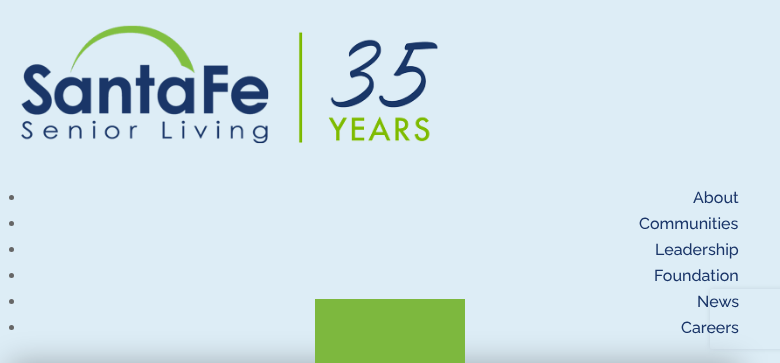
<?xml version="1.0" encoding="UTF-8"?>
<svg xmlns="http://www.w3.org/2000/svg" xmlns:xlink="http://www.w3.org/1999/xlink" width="780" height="363">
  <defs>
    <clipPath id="clip1"><path d="M 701 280 h 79 v 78 h -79 z m 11 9 h 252 c 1 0 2 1 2 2 v 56 c 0 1 -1 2 -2 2 h -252 c -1 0 -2 -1 -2 -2 v -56 c 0 -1 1 -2 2 -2 z" clip-rule="evenodd" /></clipPath>
  </defs>
  <rect width="100%" height="100%" fill="#ddedf6" />
  <circle cx="11.5" cy="327.5" r="2.5" fill="#666666" />
  <rect x="10" y="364" width="729" height="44" fill="#000000" fill-opacity="0.3" filter="blur(15px)" />
  <rect x="315" y="299" width="150" height="64" fill="#7db83e" />
  <image x="21" y="25" width="417" height="119" xlink:href="image1.png" />
  <circle cx="11.5" cy="197.5" r="2.5" fill="#666666" />
  <circle cx="11.5" cy="223.5" r="2.5" fill="#666666" />
  <circle cx="11.5" cy="249.5" r="2.5" fill="#666666" />
  <circle cx="11.5" cy="275.5" r="2.5" fill="#666666" />
  <circle cx="11.5" cy="301.5" r="2.5" fill="#666666" />
  <g clip-path="url(#clip1)">
    <rect x="710" y="289" width="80" height="60" rx="2" fill="#c4d3dd" filter="blur(2.5px)" />
  </g>
  <text x="693" y="203" style="font-family: Raleway; font-size: 16px; font-weight: 500; fill: #1a3568">About</text>
  <text x="639" y="229" style="font-family: Raleway; font-size: 16px; font-weight: 500; fill: #1a3568">Communities</text>
  <text x="655" y="255" style="font-family: Raleway; font-size: 16px; font-weight: 500; fill: #1a3568">Leadership</text>
  <text x="654" y="281" style="font-family: Raleway; font-size: 16px; font-weight: 500; fill: #1a3568">Foundation</text>
  <text x="697" y="307" style="font-family: Raleway; font-size: 16px; font-weight: 500; fill: #1a3568">News</text>
  <text x="681" y="333" style="font-family: Raleway; font-size: 16px; font-weight: 500; fill: #1a3568">Careers</text>
</svg>
